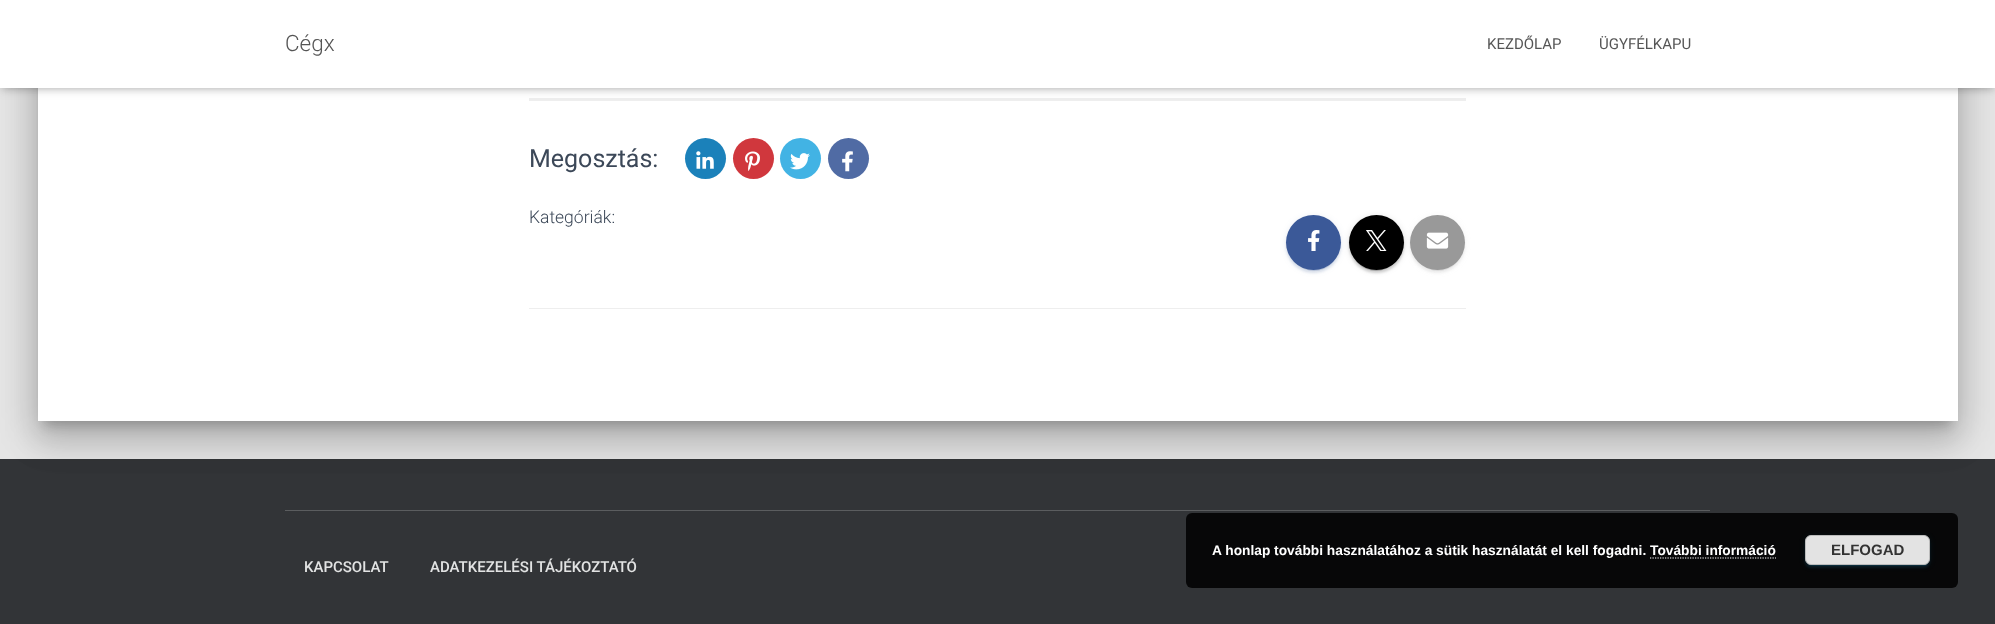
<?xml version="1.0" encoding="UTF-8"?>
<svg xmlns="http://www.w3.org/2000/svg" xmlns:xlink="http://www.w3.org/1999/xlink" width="1995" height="624">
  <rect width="100%" height="100%" fill="#e5e5e5" />
  <rect x="44" y="-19" width="1907" height="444" rx="1" fill="#000000" fill-opacity="0.2" filter="blur(6px)" />
  <rect y="459" width="1995" height="165" fill="#323437" />
  <rect x="31" y="-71" width="1933" height="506" rx="14" fill="#000000" fill-opacity="0.12" filter="blur(19px)" />
  <rect x="35" y="-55" width="1925" height="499" rx="10" fill="#000000" fill-opacity="0.14" filter="blur(15px)" />
  <rect x="38" y="88" width="1920" height="333" fill="#ffffff" />
  <rect x="529" y="98" width="937" height="3" fill="#eeeeee" />
  <rect x="3" y="8" width="1990" height="82" fill="#000000" fill-opacity="0.1" filter="blur(3px)" />
  <rect y="1" width="1995" height="88" fill="#000000" fill-opacity="0.12" filter="blur(6px)" />
  <rect x="8" y="9" width="1980" height="72" fill="#000000" fill-opacity="0.42" filter="blur(6px)" />
  <rect width="1995" height="88" fill="#ffffff" />
  <circle cx="705.5" cy="158.5" r="20.5" fill="#1b81ba" />
  <image x="696" y="151" width="18" height="18" xlink:href="image1.png" />
  <circle cx="753.5" cy="158.5" r="20.5" fill="#d0373d" />
  <image x="745" y="151" width="15" height="20" xlink:href="image2.png" />
  <circle cx="800.5" cy="158.5" r="20.5" fill="#42b3e4" />
  <image x="790" y="153" width="20" height="17" xlink:href="image3.png" />
  <circle cx="848.5" cy="158.5" r="20.5" fill="#506ba4" />
  <image x="842" y="151" width="11" height="21" xlink:href="image4.png" />
  <rect x="1286" y="216" width="55" height="55" rx="27.5" fill="#3b5998" fill-opacity="0.12" filter="blur(3px)" />
  <rect x="1289" y="221" width="50" height="50" rx="25" fill="#3b5998" fill-opacity="0.2" filter="blur(0.5px)" />
  <rect x="1286" y="218" width="55" height="55" rx="27.5" fill="#3b5998" fill-opacity="0.14" filter="blur(1px)" />
  <circle cx="1313.5" cy="242.5" r="27.5" fill="#3b5998" />
  <image x="1308" y="230" width="12" height="21" xlink:href="image5.png" />
  <rect x="1349" y="216" width="55" height="55" rx="27.5" fill="#000000" fill-opacity="0.12" filter="blur(3px)" />
  <rect x="1351" y="221" width="50" height="50" rx="25" fill="#000000" fill-opacity="0.2" filter="blur(0.5px)" />
  <rect x="1349" y="218" width="55" height="55" rx="27.5" fill="#000000" fill-opacity="0.14" filter="blur(1px)" />
  <circle cx="1376.5" cy="242.5" r="27.5" fill="#000000" />
  <image x="1366" y="230" width="21" height="21" xlink:href="image6.png" />
  <rect x="1410" y="216" width="55" height="55" rx="27.5" fill="#999999" fill-opacity="0.12" filter="blur(3px)" />
  <rect x="1413" y="221" width="50" height="50" rx="25" fill="#999999" fill-opacity="0.2" filter="blur(0.5px)" />
  <rect x="1410" y="218" width="55" height="55" rx="27.5" fill="#999999" fill-opacity="0.14" filter="blur(1px)" />
  <circle cx="1437.5" cy="242.5" r="27.5" fill="#999999" />
  <image x="1426" y="232" width="23" height="17" xlink:href="image7.png" />
  <rect x="529" y="308" width="937" height="1" fill="#eeeeee" />
  <rect x="285" y="510" width="1425" height="1" fill="#5b5d5f" />
  <rect x="1186" y="513" width="772" height="75" rx="6" fill="#000000" fill-opacity="0.85" />
  <rect x="1805" y="536" width="125" height="30" rx="6" fill="#12729b" fill-opacity="0.12" filter="blur(3px)" />
  <rect x="1808" y="541" width="120" height="25" rx="4" fill="#12729b" fill-opacity="0.2" filter="blur(0.5px)" />
  <rect x="1805" y="538" width="125" height="30" rx="6" fill="#12729b" fill-opacity="0.14" filter="blur(1px)" />
  <rect x="1805.5" y="535.5" width="124" height="29" rx="5.5" fill="#e3e3e3" stroke="#bbbbbb" />
  <path d="M 1650 558 h 126" fill="none" stroke="#ffffff" stroke-width="1.2" stroke-dasharray="1.25 1.25" />
  <text x="285" y="51" style="font-family: Roboto; font-size: 22.5px; font-weight: 300; fill: #555555">Cégx</text>
  <text x="1487" y="49" style="font-family: Roboto; font-size: 15px; fill: #555555">KEZDŐLAP</text>
  <text x="1599" y="49" style="font-family: Roboto; font-size: 15px; fill: #555555">ÜGYFÉLKAPU</text>
  <text x="529" y="167" style="font-family: Roboto; font-size: 25px; fill: #3c4858">Megosztás:</text>
  <text x="529" y="223" style="font-family: Roboto; font-size: 17.5px; font-weight: 300; fill: #3c4858">Kategóriák:</text>
  <text x="304" y="572" style="font-family: Roboto; font-size: 15px; font-weight: 500; fill: #e2e3e3">KAPCSOLAT</text>
  <text x="430" y="572" style="font-family: Roboto; font-size: 15px; font-weight: 500; fill: #e2e3e3">ADATKEZELÉSI TÁJÉKOZTATÓ</text>
  <text x="1212" y="555" style="font-family: Liberation Sans; font-size: 13.75px; font-weight: bold; fill: #ffffff">A honlap további használatához a sütik használatát el kell fogadni. További információ</text>
  <text x="1831" y="555" style="font-family: Liberation Sans; font-size: 15px; font-weight: bold; fill: #333333">ELFOGAD</text>
</svg>
